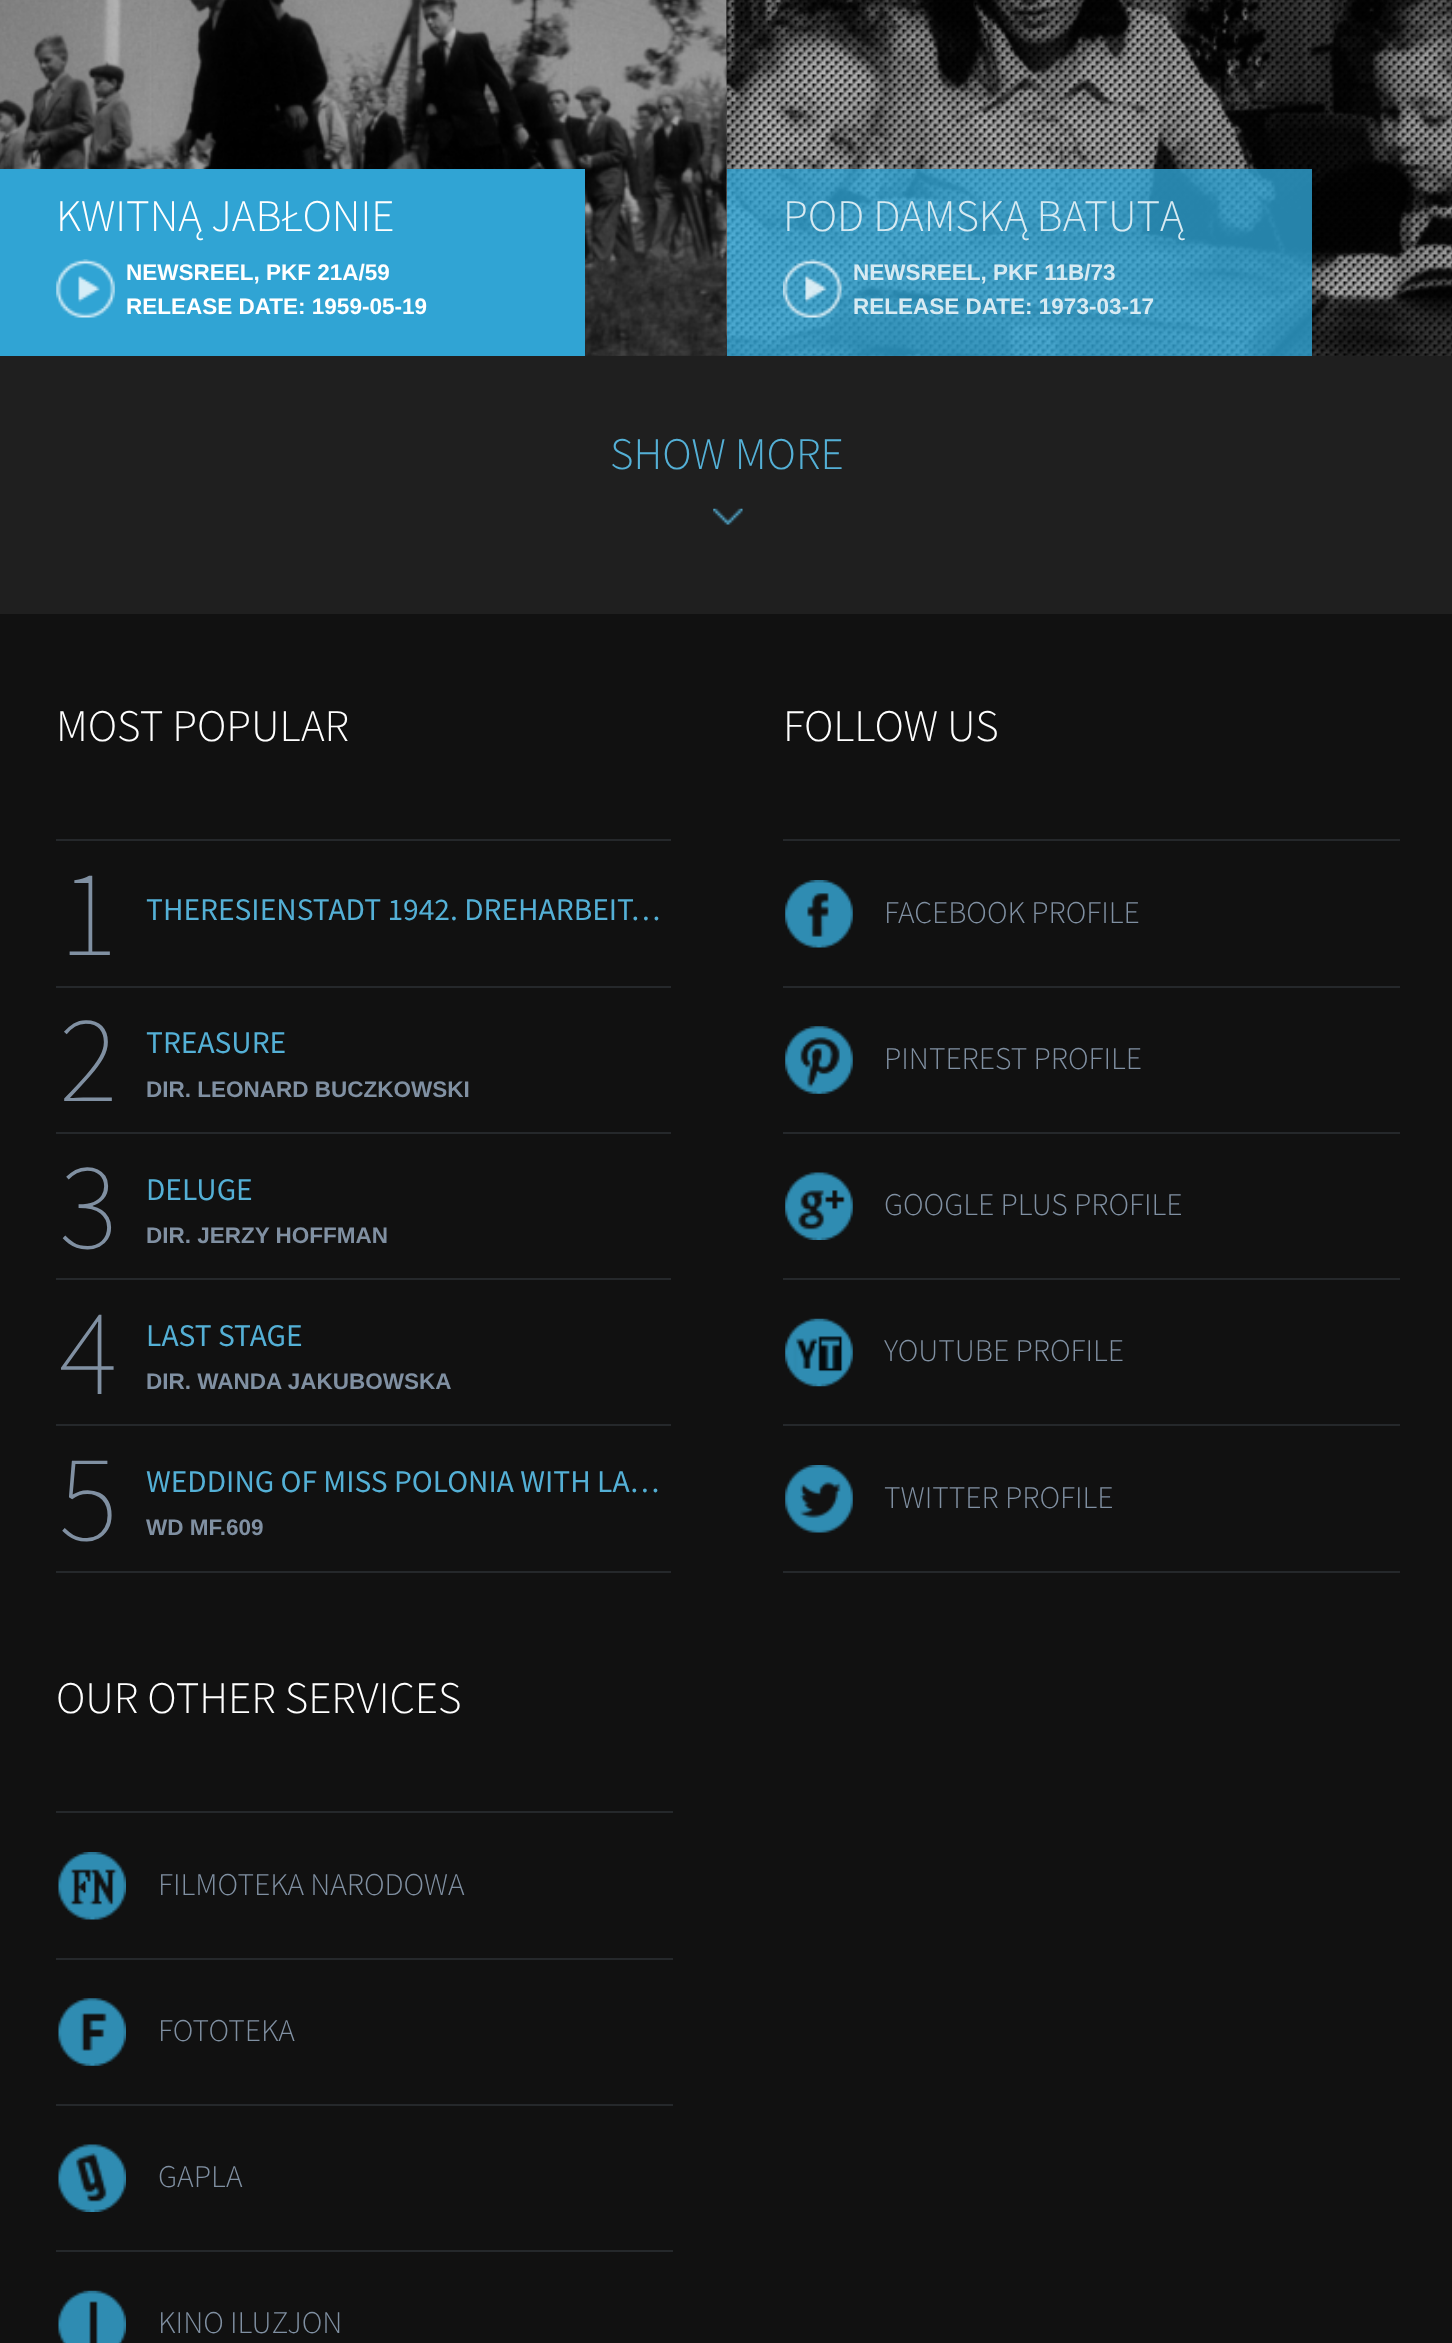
<?xml version="1.0" encoding="UTF-8"?>
<svg xmlns="http://www.w3.org/2000/svg" xmlns:xlink="http://www.w3.org/1999/xlink" width="1452" height="2343">
  <rect width="100%" height="100%" fill="#111111" />
  <image x="585" y="0" width="142" height="356" xlink:href="image2.png" />
  <image x="0" y="0" width="727" height="356" xlink:href="image1.png" />
  <rect y="169" width="585" height="187" fill="#30a4d4" />
  <image x="56" y="259" width="59" height="59" xlink:href="image3.png" />
  <image x="726" y="0" width="726" height="356" xlink:href="image4.png" />
  <image x="726" y="0" width="726" height="356" xlink:href="image5.png" />
  <image x="726" y="0" width="726" height="356" xlink:href="image6.png" />
  <rect x="727" y="169" width="585" height="187" fill="#30a4d4" fill-opacity="0.8" />
  <image x="783" y="259" width="59" height="59" xlink:href="image7.png" />
  <rect y="356" width="1452" height="258" fill="#1f1f1f" />
  <image x="713" y="508" width="30" height="17" xlink:href="image8.png" />
  <rect x="56" y="839" width="615" height="2" fill="#25282b" />
  <rect x="56" y="986" width="615" height="2" fill="#25282b" />
  <rect x="56" y="1132" width="615" height="2" fill="#25282b" />
  <rect x="56" y="1278" width="615" height="2" fill="#25282b" />
  <rect x="56" y="1424" width="615" height="2" fill="#25282b" />
  <rect x="56" y="1571" width="615" height="2" fill="#25282b" />
  <rect x="783" y="839" width="617" height="2" fill="#25282b" />
  <image x="785" y="880" width="68" height="68" xlink:href="image9.png" />
  <rect x="783" y="986" width="617" height="2" fill="#25282b" />
  <image x="785" y="1026" width="68" height="68" xlink:href="image10.png" />
  <rect x="783" y="1132" width="617" height="2" fill="#25282b" />
  <image x="785" y="1172" width="68" height="68" xlink:href="image11.png" />
  <rect x="783" y="1278" width="617" height="2" fill="#25282b" />
  <image x="785" y="1318" width="68" height="69" xlink:href="image12.png" />
  <rect x="783" y="1424" width="617" height="2" fill="#25282b" />
  <rect x="783" y="1571" width="617" height="2" fill="#25282b" />
  <image x="785" y="1465" width="68" height="68" xlink:href="image13.png" />
  <rect x="56" y="1811" width="617" height="2" fill="#25282b" />
  <image x="58" y="1852" width="68" height="68" xlink:href="image14.png" />
  <rect x="56" y="1958" width="617" height="2" fill="#25282b" />
  <image x="58" y="1998" width="68" height="68" xlink:href="image15.png" />
  <rect x="56" y="2104" width="617" height="2" fill="#25282b" />
  <image x="58" y="2144" width="68" height="68" xlink:href="image16.png" />
  <rect x="56" y="2250" width="617" height="2" fill="#25282b" />
  <image x="58" y="2290" width="68" height="53" xlink:href="image17.png" />
  <text x="56" y="231" style="font-family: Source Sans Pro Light; font-size: 45px; font-weight: 300; fill: #ffffff">KWITNĄ JABŁONIE</text>
  <text x="126" y="280" style="font-family: Liberation Sans; font-size: 22.5px; font-weight: bold; fill: #ffffff">NEWSREEL, PKF 21A/59</text>
  <text x="126" y="314" style="font-family: Liberation Sans; font-size: 22.5px; font-weight: bold; fill: #ffffff">RELEASE DATE: 1959-05-19</text>
  <text x="783" y="231" style="font-family: Source Sans Pro Light; font-size: 45px; font-weight: 300; fill: #d7eaf2">POD DAMSKĄ BATUTĄ</text>
  <text x="853" y="280" style="font-family: Liberation Sans; font-size: 22.5px; font-weight: bold; fill: #d7eaf2">NEWSREEL, PKF 11B/73</text>
  <text x="853" y="314" style="font-family: Liberation Sans; font-size: 22.5px; font-weight: bold; fill: #d7eaf2">RELEASE DATE: 1973-03-17</text>
  <text x="610" y="469" style="font-family: Source Sans Pro Light; font-size: 45px; font-weight: 300; fill: #54b0d6">SHOW MORE</text>
  <text x="56" y="741" style="font-family: Source Sans Pro Light; font-size: 45px; font-weight: 300; fill: #ffffff">MOST POPULAR</text>
  <text x="59" y="955" style="font-family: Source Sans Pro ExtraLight; font-size: 124px; font-weight: 200; fill: #8090a2">1</text>
  <text x="146" y="920" style="font-family: Source Sans Pro; font-size: 31.5px; fill: #54b0d6">THERESIENSTADT 1942. DREHARBEIT…</text>
  <text x="59" y="1101" style="font-family: Source Sans Pro ExtraLight; font-size: 124px; font-weight: 200; fill: #8090a2">2</text>
  <text x="146" y="1053" style="font-family: Source Sans Pro; font-size: 31.5px; fill: #54b0d6">TREASURE</text>
  <text x="146" y="1097" style="font-family: Liberation Sans; font-size: 22.5px; font-weight: bold; fill: #8090a2">DIR. LEONARD BUCZKOWSKI</text>
  <text x="59" y="1248" style="font-family: Source Sans Pro ExtraLight; font-size: 124px; font-weight: 200; fill: #8090a2">3</text>
  <text x="146" y="1200" style="font-family: Source Sans Pro; font-size: 31.5px; fill: #54b0d6">DELUGE</text>
  <text x="146" y="1243" style="font-family: Liberation Sans; font-size: 22.5px; font-weight: bold; fill: #8090a2">DIR. JERZY HOFFMAN</text>
  <text x="59" y="1394" style="font-family: Source Sans Pro ExtraLight; font-size: 124px; font-weight: 200; fill: #8090a2">4</text>
  <text x="146" y="1346" style="font-family: Source Sans Pro; font-size: 31.5px; fill: #54b0d6">LAST STAGE</text>
  <text x="146" y="1389" style="font-family: Liberation Sans; font-size: 22.5px; font-weight: bold; fill: #8090a2">DIR. WANDA JAKUBOWSKA</text>
  <text x="59" y="1540" style="font-family: Source Sans Pro ExtraLight; font-size: 124px; font-weight: 200; fill: #8090a2">5</text>
  <text x="146" y="1492" style="font-family: Source Sans Pro; font-size: 31.5px; fill: #54b0d6">WEDDING OF MISS POLONIA WITH LA…</text>
  <text x="146" y="1535" style="font-family: Liberation Sans; font-size: 22.5px; font-weight: bold; fill: #8090a2">WD MF.609</text>
  <text x="783" y="741" style="font-family: Source Sans Pro Light; font-size: 45px; font-weight: 300; fill: #ffffff">FOLLOW US</text>
  <text x="884" y="923" style="font-family: Source Sans Pro Light; font-size: 31.5px; font-weight: 300; fill: #8090a2">FACEBOOK PROFILE</text>
  <text x="884" y="1069" style="font-family: Source Sans Pro Light; font-size: 31.5px; font-weight: 300; fill: #8090a2">PINTEREST PROFILE</text>
  <text x="884" y="1215" style="font-family: Source Sans Pro Light; font-size: 31.5px; font-weight: 300; fill: #8090a2">GOOGLE PLUS PROFILE</text>
  <text x="884" y="1361" style="font-family: Source Sans Pro Light; font-size: 31.5px; font-weight: 300; fill: #8090a2">YOUTUBE PROFILE</text>
  <text x="884" y="1508" style="font-family: Source Sans Pro Light; font-size: 31.5px; font-weight: 300; fill: #8090a2">TWITTER PROFILE</text>
  <text x="56" y="1713" style="font-family: Source Sans Pro Light; font-size: 45px; font-weight: 300; fill: #ffffff">OUR OTHER SERVICES</text>
  <text x="158" y="1895" style="font-family: Source Sans Pro Light; font-size: 31.5px; font-weight: 300; fill: #8090a2">FILMOTEKA NARODOWA</text>
  <text x="158" y="2041" style="font-family: Source Sans Pro Light; font-size: 31.5px; font-weight: 300; fill: #8090a2">FOTOTEKA</text>
  <text x="158" y="2187" style="font-family: Source Sans Pro Light; font-size: 31.5px; font-weight: 300; fill: #8090a2">GAPLA</text>
  <text x="158" y="2333" style="font-family: Source Sans Pro Light; font-size: 31.5px; font-weight: 300; fill: #8090a2">KINO ILUZJON</text>
</svg>
